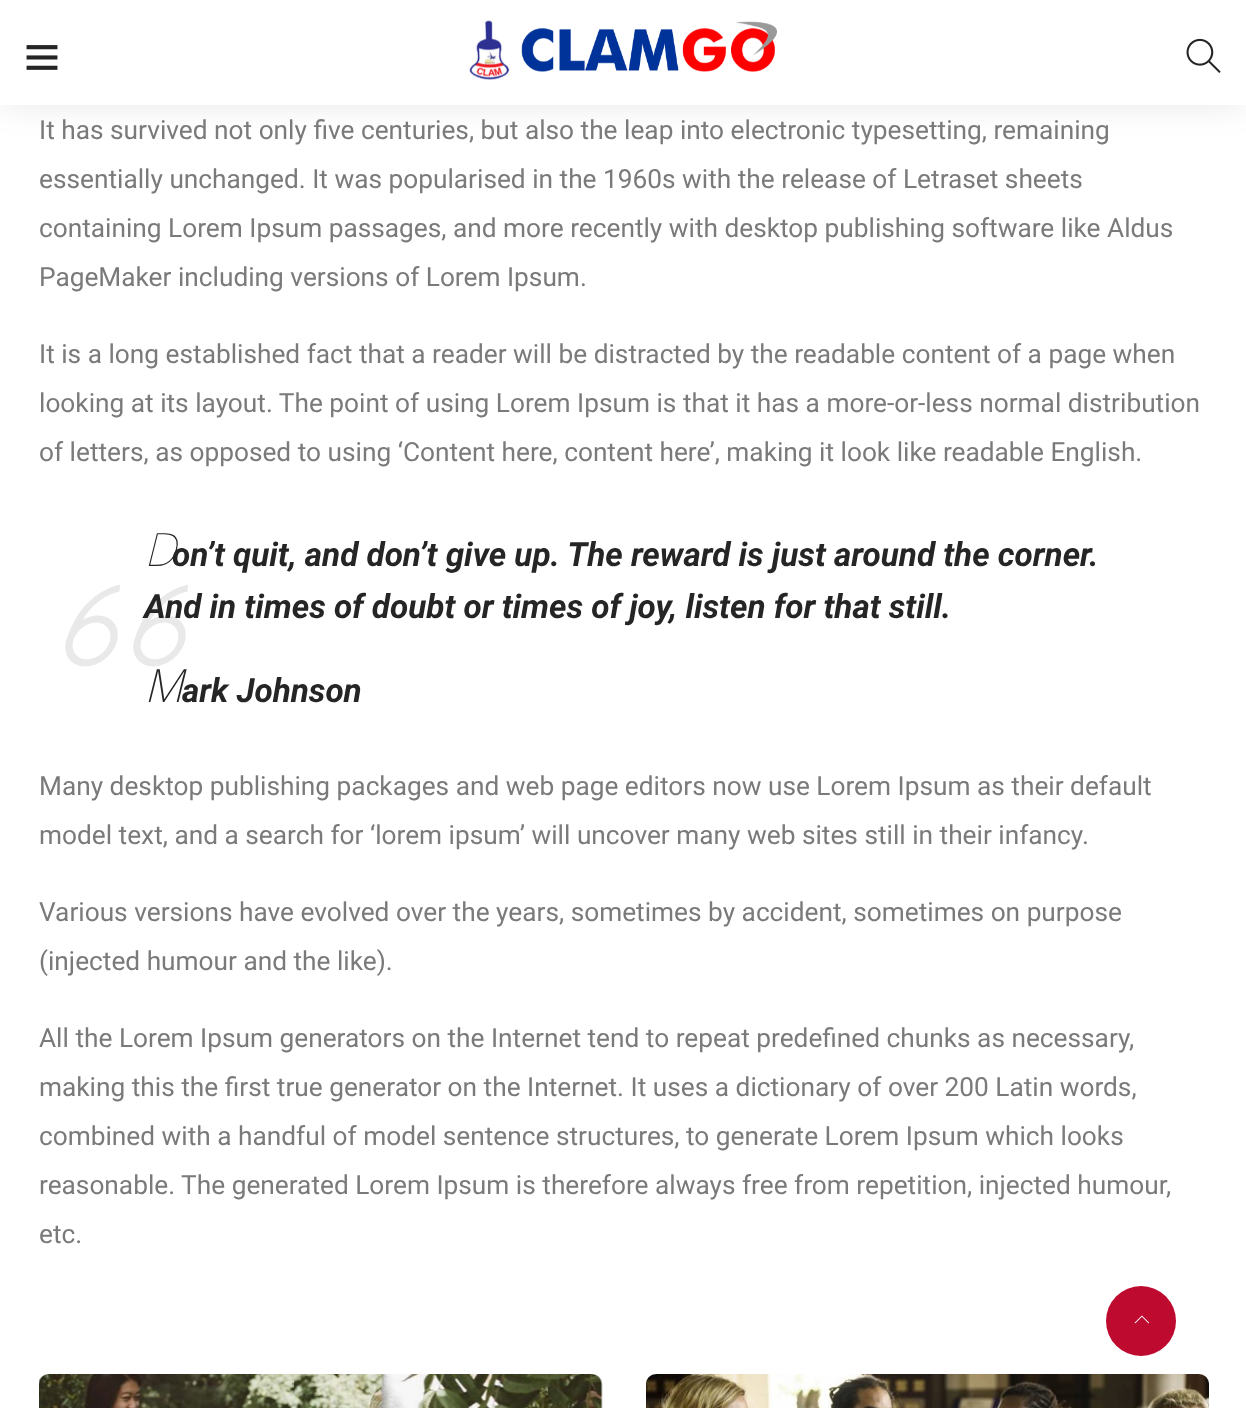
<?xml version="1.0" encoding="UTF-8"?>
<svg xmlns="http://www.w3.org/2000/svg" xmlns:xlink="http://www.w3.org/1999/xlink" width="1246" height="1408">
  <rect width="100%" height="100%" fill="#ffffff" />
  <rect x="2" y="2" width="1242" height="101" fill="#000000" fill-opacity="0.1" filter="blur(17.5px)" />
  <rect width="1246" height="105" fill="#ffffff" />
  <image x="26" y="45" width="32" height="25" xlink:href="image1.png" />
  <image x="469" y="20" width="308" height="60" xlink:href="image2.png" />
  <image x="1186" y="38" width="35" height="35" xlink:href="image3.png" />
  <image x="65" y="584" width="123" height="83" xlink:href="image4.png" />
  <image x="39" y="1374" width="564" height="34" xlink:href="image5.png" />
  <image x="646" y="1374" width="563" height="34" xlink:href="image6.png" />
  <circle cx="1141" cy="1321" r="35" fill="#bf0a30" />
  <image x="1134" y="1315" width="16" height="9" xlink:href="image7.png" />
  <text x="39" y="139" style="font-family: Roboto; font-size: 26.25px; fill: #7a7a7a">It has survived not only five centuries, but also the leap into electronic typesetting, remaining</text>
  <text x="39" y="188" style="font-family: Roboto; font-size: 26.25px; fill: #7a7a7a">essentially unchanged. It was popularised in the 1960s with the release of Letraset sheets</text>
  <text x="39" y="237" style="font-family: Roboto; font-size: 26.25px; fill: #7a7a7a">containing Lorem Ipsum passages, and more recently with desktop publishing software like Aldus</text>
  <text x="39" y="286" style="font-family: Roboto; font-size: 26.25px; fill: #7a7a7a">PageMaker including versions of Lorem Ipsum.</text>
  <text x="39" y="363" style="font-family: Roboto; font-size: 26.25px; fill: #7a7a7a">It is a long established fact that a reader will be distracted by the readable content of a page when</text>
  <text x="39" y="412" style="font-family: Roboto; font-size: 26.25px; fill: #7a7a7a">looking at its layout. The point of using Lorem Ipsum is that it has a more-or-less normal distribution</text>
  <text x="39" y="461" style="font-family: Roboto; font-size: 26.25px; fill: #7a7a7a">of letters, as opposed to using ‘Content here, content here’, making it look like readable English.</text>
  <text x="144" y="566" style="font-family: Noto Sans; font-size: 46px; font-weight: 100; font-style: italic; fill: #252525">D</text>
  <text x="172" y="566" style="font-family: Roboto; font-size: 33.25px; font-weight: bold; font-style: italic; fill: #252525">on’t quit, and don’t give up. The reward is just around the corner.</text>
  <text x="144" y="618" style="font-family: Roboto; font-size: 33.25px; font-weight: bold; font-style: italic; fill: #252525">And in times of doubt or times of joy, listen for that still.</text>
  <text x="144" y="702" style="font-family: Noto Sans; font-size: 46px; font-weight: 200; font-style: italic; fill: #252525">M</text>
  <text x="182" y="702" style="font-family: Roboto; font-size: 33.25px; font-weight: bold; font-style: italic; fill: #252525">ark Johnson</text>
  <text x="39" y="795" style="font-family: Roboto; font-size: 26.25px; fill: #7a7a7a">Many desktop publishing packages and web page editors now use Lorem Ipsum as their default</text>
  <text x="39" y="844" style="font-family: Roboto; font-size: 26.25px; fill: #7a7a7a">model text, and a search for ‘lorem ipsum’ will uncover many web sites still in their infancy.</text>
  <text x="39" y="921" style="font-family: Roboto; font-size: 26.25px; fill: #7a7a7a">Various versions have evolved over the years, sometimes by accident, sometimes on purpose</text>
  <text x="39" y="970" style="font-family: Roboto; font-size: 26.25px; fill: #7a7a7a">(injected humour and the like).</text>
  <text x="39" y="1047" style="font-family: Roboto; font-size: 26.25px; fill: #7a7a7a">All the Lorem Ipsum generators on the Internet tend to repeat predefined chunks as necessary,</text>
  <text x="39" y="1096" style="font-family: Roboto; font-size: 26.25px; fill: #7a7a7a">making this the first true generator on the Internet. It uses a dictionary of over 200 Latin words,</text>
  <text x="39" y="1145" style="font-family: Roboto; font-size: 26.25px; fill: #7a7a7a">combined with a handful of model sentence structures, to generate Lorem Ipsum which looks</text>
  <text x="39" y="1194" style="font-family: Roboto; font-size: 26.25px; fill: #7a7a7a">reasonable. The generated Lorem Ipsum is therefore always free from repetition, injected humour,</text>
  <text x="39" y="1243" style="font-family: Roboto; font-size: 26.25px; fill: #7a7a7a">etc.</text>
</svg>
